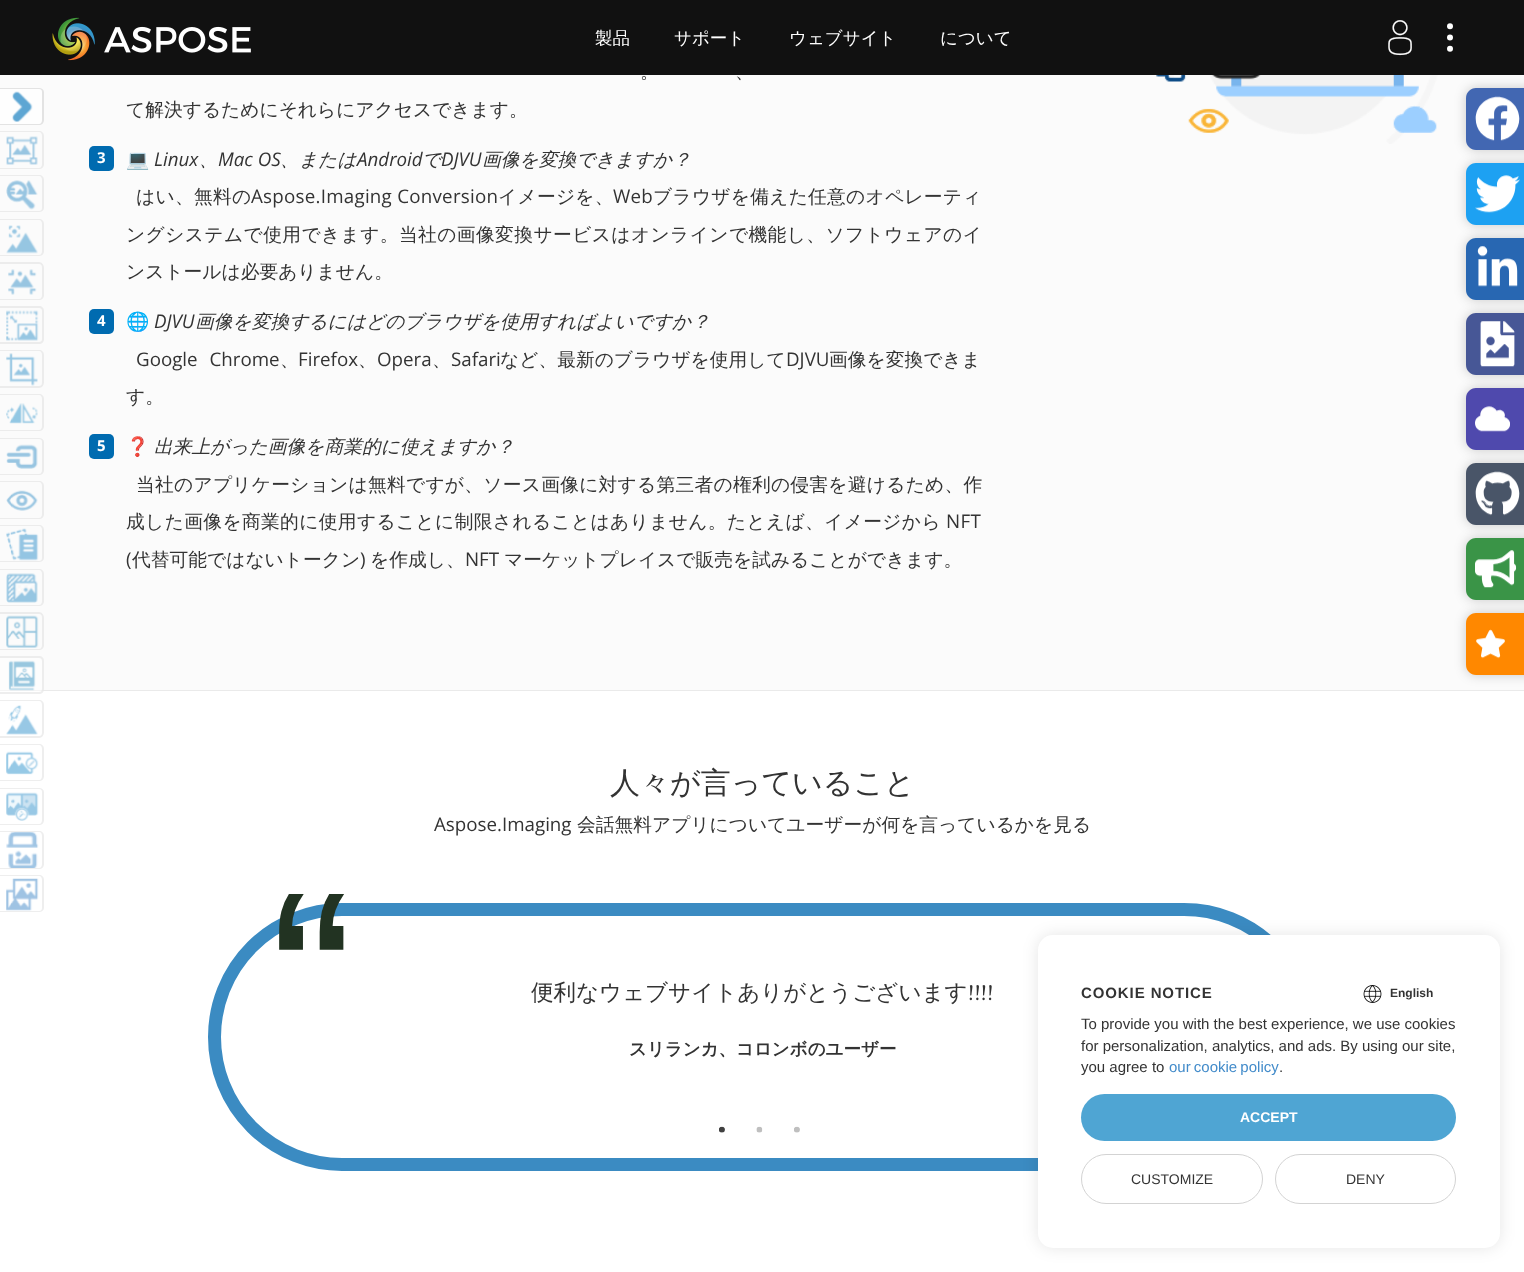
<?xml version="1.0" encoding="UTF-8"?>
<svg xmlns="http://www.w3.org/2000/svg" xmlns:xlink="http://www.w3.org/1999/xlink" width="1524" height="1272">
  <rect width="100%" height="100%" fill="#ffffff" />
  <rect y="75" width="1524" height="615" fill="#fbfbfb" />
  <rect x="1466" y="88" width="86" height="62" rx="10" fill="#000000" fill-opacity="0.2" filter="blur(6px)" />
  <rect width="1524" height="75" fill="#111111" />
  <image x="52" y="17" width="199" height="44" xlink:href="image1.png" />
  <image x="1388" y="20" width="24" height="36" xlink:href="image2.png" />
  <circle cx="1450" cy="26.2" r="3" fill="#ffffff" />
  <circle cx="1450" cy="37.5" r="3" fill="#ffffff" />
  <circle cx="1450" cy="48.8" r="3" fill="#ffffff" />
  <path d="M -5 88 h 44 c 3 0 5 2 5 5 v 27 c 0 3 -2 5 -5 5 h -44 z" fill="#fefefe" />
  <image x="12" y="91" width="21" height="31" xlink:href="image3.png" />
  <path d="M -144 88 h 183 c 3 0 5 2 5 4 v 28 c 0 3 -2 5 -5 5 h -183 z m 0 1 h 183 c 2 0 3 1 3 3 v 28 c 0 2 -1 4 -3 4 h -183 z" fill="#e3e3e3" fill-rule="evenodd" />
  <image x="6" y="136" width="32" height="29" xlink:href="image4.png" />
  <path d="M -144 131 h 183 c 3 0 5 2 5 5 v 28 c 0 3 -2 5 -5 5 h -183 z m 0 1 h 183 c 2 0 3 2 3 4 v 28 c 0 2 -1 4 -3 4 h -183 z" fill="#ececec" fill-rule="evenodd" />
  <image x="6" y="180" width="32" height="30" xlink:href="image5.png" />
  <path d="M -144 175 h 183 c 3 0 5 2 5 5 v 28 c 0 2 -2 4 -5 4 h -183 z m 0 1 h 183 c 2 0 3 2 3 4 v 28 c 0 2 -1 3 -3 3 h -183 z" fill="#ececec" fill-rule="evenodd" />
  <image x="6" y="225" width="32" height="29" xlink:href="image6.png" />
  <path d="M -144 219 h 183 c 3 0 5 2 5 5 v 27 c 0 3 -2 5 -5 5 h -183 z m 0 1 h 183 c 2 0 3 2 3 4 v 27 c 0 2 -1 4 -3 4 h -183 z" fill="#ececec" fill-rule="evenodd" />
  <image x="8" y="269" width="29" height="26" xlink:href="image7.png" />
  <path d="M -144 262 h 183 c 3 0 5 3 5 6 v 27 c 0 3 -2 5 -5 5 h -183 z m 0 2 h 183 c 2 0 3 1 3 4 v 27 c 0 2 -1 4 -3 4 h -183 z" fill="#ececec" fill-rule="evenodd" />
  <image x="6" y="310" width="33" height="31" xlink:href="image8.png" />
  <path d="M -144 306 h 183 c 3 0 5 2 5 5 v 28 c 0 3 -2 5 -5 5 h -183 z m 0 2 h 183 c 2 0 3 1 3 3 v 28 c 0 2 -1 3 -3 3 h -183 z" fill="#ececec" fill-rule="evenodd" />
  <image x="6" y="353" width="32" height="33" xlink:href="image9.png" />
  <path d="M -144 350 h 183 c 3 0 5 2 5 5 v 27 c 0 3 -2 6 -5 6 h -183 z m 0 1 h 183 c 2 0 3 2 3 4 v 27 c 0 3 -1 4 -3 4 h -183 z" fill="#ececec" fill-rule="evenodd" />
  <image x="6" y="403" width="32" height="21" xlink:href="image10.png" />
  <path d="M -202 394 h 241 c 3 0 5 2 5 5 v 27 c 0 3 -2 5 -5 5 h -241 z m 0 1 h 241 c 2 0 3 2 3 4 v 27 c 0 2 -1 4 -3 4 h -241 z" fill="#ececec" fill-rule="evenodd" />
  <image x="6" y="444" width="32" height="25" xlink:href="image11.png" />
  <path d="M -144 438 h 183 c 3 0 5 2 5 4 v 28 c 0 3 -2 5 -5 5 h -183 z m 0 1 h 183 c 2 0 3 1 3 3 v 28 c 0 2 -1 4 -3 4 h -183 z" fill="#ececec" fill-rule="evenodd" />
  <image x="6" y="490" width="32" height="21" xlink:href="image12.png" />
  <path d="M -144 481 h 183 c 3 0 5 2 5 5 v 28 c 0 3 -2 5 -5 5 h -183 z m 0 1 h 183 c 2 0 3 2 3 4 v 28 c 0 2 -1 4 -3 4 h -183 z" fill="#ececec" fill-rule="evenodd" />
  <image x="6" y="528" width="33" height="33" xlink:href="image13.png" />
  <path d="M -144 525 h 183 c 3 0 5 2 5 5 v 28 c 0 2 -2 4 -5 4 h -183 z m 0 1 h 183 c 2 0 3 2 3 4 v 28 c 0 2 -1 3 -3 3 h -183 z" fill="#ececec" fill-rule="evenodd" />
  <image x="6" y="573" width="32" height="30" xlink:href="image14.png" />
  <path d="M -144 569 h 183 c 3 0 5 2 5 5 v 27 c 0 3 -2 5 -5 5 h -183 z m 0 1 h 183 c 2 0 3 2 3 4 v 27 c 0 2 -1 4 -3 4 h -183 z" fill="#ececec" fill-rule="evenodd" />
  <image x="6" y="615" width="33" height="33" xlink:href="image15.png" />
  <path d="M -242 612 h 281 c 3 0 5 3 5 6 v 27 c 0 3 -2 5 -5 5 h -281 z m 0 2 h 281 c 2 0 3 1 3 4 v 27 c 0 2 -1 4 -3 4 h -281 z" fill="#ececec" fill-rule="evenodd" />
  <rect y="690" width="1524" height="1" fill="#eaeaea" />
  <path d="M -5 656 h 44 c 3 0 5 2 5 5 v 28 c 0 3 -2 5 -5 5 h -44 z" fill="#ffffff" fill-opacity="0.5" />
  <image x="8" y="660" width="28" height="31" xlink:href="image16.png" />
  <path d="M -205 656 h 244 c 3 0 5 2 5 5 v 28 c 0 3 -2 5 -5 5 h -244 z m 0 2 h 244 c 2 0 3 1 3 3 v 28 c 0 2 -1 3 -3 3 h -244 z" fill="#dddddd" fill-opacity="0.5" fill-rule="evenodd" />
  <image x="6" y="705" width="32" height="30" xlink:href="image17.png" />
  <path d="M -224 700 h 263 c 3 0 5 2 5 5 v 27 c 0 3 -2 6 -5 6 h -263 z m 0 1 h 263 c 2 0 3 2 3 4 v 27 c 0 3 -1 4 -3 4 h -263 z" fill="#eeeeee" fill-rule="evenodd" />
  <image x="6" y="751" width="33" height="24" xlink:href="image18.png" />
  <path d="M -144 744 h 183 c 3 0 5 2 5 5 v 27 c 0 3 -2 5 -5 5 h -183 z m 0 1 h 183 c 2 0 3 2 3 4 v 27 c 0 2 -1 4 -3 4 h -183 z" fill="#eeeeee" fill-rule="evenodd" />
  <image x="6" y="792" width="33" height="29" xlink:href="image19.png" />
  <path d="M -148 788 h 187 c 3 0 5 2 5 4 v 28 c 0 3 -2 5 -5 5 h -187 z m 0 1 h 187 c 2 0 3 1 3 3 v 28 c 0 2 -1 4 -3 4 h -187 z" fill="#eeeeee" fill-rule="evenodd" />
  <image x="6" y="832" width="33" height="36" xlink:href="image20.png" />
  <path d="M -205 831 h 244 c 3 0 5 2 5 5 v 28 c 0 3 -2 5 -5 5 h -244 z m 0 1 h 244 c 2 0 3 2 3 4 v 28 c 0 2 -1 4 -3 4 h -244 z" fill="#eeeeee" fill-rule="evenodd" />
  <image x="6" y="878" width="33" height="33" xlink:href="image21.png" />
  <path d="M -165 875 h 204 c 3 0 5 2 5 5 v 28 c 0 2 -2 4 -5 4 h -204 z m 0 1 h 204 c 2 0 3 2 3 4 v 28 c 0 2 -1 3 -3 3 h -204 z" fill="#eeeeee" fill-rule="evenodd" />
  <rect x="89" y="146" width="25" height="25" rx="5" fill="#006bb0" />
  <rect x="89" y="309" width="25" height="25" rx="5" fill="#006bb0" />
  <rect x="89" y="434" width="25" height="25" rx="5" fill="#006bb0" />
  <image x="1156" y="75" width="282" height="69" xlink:href="image22.png" />
  <path d="M 1476 88 h 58 v 62 h -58 c -5.5 0 -10 -4.5 -10 -10 v -42 c 0 -5.5 4.5 -10 10 -10 z" fill="#4267b2" />
  <image x="1475" y="96" width="45" height="45" xlink:href="image23.png" />
  <rect x="1466" y="163" width="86" height="62" rx="10" fill="#000000" fill-opacity="0.2" filter="blur(6px)" />
  <path d="M 1476 163 h 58 v 62 h -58 c -5.5 0 -10 -4.5 -10 -10 v -42 c 0 -5.5 4.5 -10 10 -10 z" fill="#1da1f2" />
  <image x="1475" y="175" width="45" height="38" xlink:href="image24.png" />
  <rect x="1466" y="238" width="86" height="62" rx="10" fill="#000000" fill-opacity="0.2" filter="blur(6px)" />
  <path d="M 1476 238 h 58 v 62 h -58 c -5.5 0 -10 -4.5 -10 -10 v -42 c 0 -5.5 4.5 -10 10 -10 z" fill="#2867b2" />
  <image x="1477" y="246" width="41" height="41" xlink:href="image25.png" />
  <rect x="1466" y="313" width="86" height="62" rx="10" fill="#000000" fill-opacity="0.2" filter="blur(6px)" />
  <path d="M 1476 313 h 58 v 62 h -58 c -5.5 0 -10 -4.5 -10 -10 v -42 c 0 -5.5 4.5 -10 10 -10 z" fill="#475796" />
  <image x="1480" y="321" width="35" height="46" xlink:href="image26.png" />
  <rect x="1466" y="388" width="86" height="62" rx="10" fill="#000000" fill-opacity="0.2" filter="blur(6px)" />
  <path d="M 1476 388 h 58 v 62 h -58 c -5.5 0 -10 -4.5 -10 -10 v -42 c 0 -5.5 4.5 -10 10 -10 z" fill="#4f49ad" />
  <image x="1475" y="406" width="35" height="26" xlink:href="image27.png" />
  <rect x="1466" y="463" width="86" height="62" rx="10" fill="#000000" fill-opacity="0.2" filter="blur(6px)" />
  <path d="M 1476 463 h 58 v 62 h -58 c -5.5 0 -10 -4.5 -10 -10 v -42 c 0 -5.5 4.5 -10 10 -10 z" fill="#495568" />
  <image x="1475" y="471" width="45" height="45" xlink:href="image28.png" />
  <rect x="1466" y="538" width="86" height="62" rx="10" fill="#000000" fill-opacity="0.2" filter="blur(6px)" />
  <path d="M 1476 538 h 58 v 62 h -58 c -5.5 0 -10 -4.5 -10 -10 v -42 c 0 -5.5 4.5 -10 10 -10 z" fill="#3a9447" />
  <image x="1475" y="550" width="42" height="38" xlink:href="image29.png" />
  <rect x="1466" y="613" width="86" height="62" rx="10" fill="#000000" fill-opacity="0.2" filter="blur(6px)" />
  <path d="M 1476 613 h 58 v 62 h -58 c -5.5 0 -10 -4.5 -10 -10 v -42 c 0 -5.5 4.5 -10 10 -10 z" fill="#ff8800" />
  <image x="1476" y="629" width="29" height="30" xlink:href="image30.png" />
  <rect x="214.5" y="909.5" width="1097" height="255" rx="127.5" fill="none" stroke="#3b8bc2" stroke-width="13" />
  <image x="719" y="1126" width="6" height="7" xlink:href="image31.png" />
  <image x="756" y="1126" width="7" height="7" xlink:href="image32.png" />
  <image x="794" y="1126" width="6" height="7" xlink:href="image33.png" />
  <rect x="1038" y="935" width="462" height="313" rx="15" fill="#000000" fill-opacity="0.1" filter="blur(8px)" />
  <rect x="1038" y="935" width="462" height="313" rx="15" fill="#ffffff" />
  <image x="1363" y="985" width="19" height="18" xlink:href="image34.png" />
  <rect x="1081" y="1094" width="375" height="47" rx="23.5" fill="#4fa5d3" />
  <rect x="1081.5" y="1154.5" width="181" height="49" rx="24.5" fill="none" stroke="#d3d3d3" />
  <rect x="1275.5" y="1154.5" width="180" height="49" rx="24.5" fill="none" stroke="#d3d3d3" />
  <text x="595" y="44" style="font-family: WenQuanYi Zen Hei; font-size: 17.5px; font-weight: 500; fill: #ffffff">製品</text>
  <text x="674" y="44" style="font-family: WenQuanYi Zen Hei; font-size: 17.5px; font-weight: 500; fill: #ffffff">サポート</text>
  <text x="789" y="44" style="font-family: WenQuanYi Zen Hei; font-size: 17.5px; font-weight: 500; fill: #ffffff">ウェブサイト</text>
  <text x="940" y="44" style="font-family: WenQuanYi Zen Hei; font-size: 17.5px; font-weight: 500; fill: #ffffff">について</text>
  <text x="640" y="78" style="font-family: WenQuanYi Zen Hei; font-size: 18.75px; font-weight: 500; fill: #333333">。</text>
  <text x="735" y="78" style="font-family: WenQuanYi Zen Hei; font-size: 18.75px; font-weight: 500; fill: #333333">、</text>
  <text x="126" y="116" style="font-family: WenQuanYi Zen Hei; font-size: 18.75px; font-weight: 500; fill: #333333">て解決するためにそれらにアクセスできます。</text>
  <text x="97" y="163" style="font-family: Open Sans; font-size: 15px; font-weight: bold; fill: #ffffff">3</text>
  <text x="126" y="166" style="font-family: Noto Color Emoji; font-size: 18.75px; fill: #333333">💻</text>
  <text x="154" y="166" style="font-family: Open Sans; font-size: 18.75px; font-style: italic; fill: #333333">Linux</text>
  <text x="199" y="166" style="font-family: WenQuanYi Zen Hei; font-size: 18.75px; font-weight: 500; font-style: italic; fill: #333333">、</text>
  <text x="218" y="166" style="font-family: Open Sans; font-size: 18.75px; font-style: italic; fill: #333333">Mac OS</text>
  <text x="280" y="166" style="font-family: WenQuanYi Zen Hei; font-size: 18.75px; font-weight: 500; font-style: italic; fill: #333333">、または</text>
  <text x="357" y="166" style="font-family: Open Sans; font-size: 18.75px; font-style: italic; fill: #333333">Android</text>
  <text x="422" y="166" style="font-family: WenQuanYi Zen Hei; font-size: 18.75px; font-weight: 500; font-style: italic; fill: #333333">で</text>
  <text x="441" y="166" style="font-family: Open Sans; font-size: 18.75px; font-style: italic; fill: #333333">DJVU</text>
  <text x="482" y="166" style="font-family: WenQuanYi Zen Hei; font-size: 18.75px; font-weight: 500; font-style: italic; fill: #333333">画像を変換できますか？</text>
  <text x="136" y="203" style="font-family: WenQuanYi Zen Hei; font-size: 18.75px; font-weight: 500; letter-spacing: 0.25px; fill: #333333">はい、無料の</text>
  <text x="251" y="203" style="font-family: Open Sans; font-size: 18.75px; letter-spacing: 0.25px; fill: #333333">Aspose.Imaging Conversion</text>
  <text x="498" y="203" style="font-family: WenQuanYi Zen Hei; font-size: 18.75px; font-weight: 500; letter-spacing: 0.25px; fill: #333333">イメージを、</text>
  <text x="613" y="203" style="font-family: Open Sans; font-size: 18.75px; letter-spacing: 0.25px; fill: #333333">Web</text>
  <text x="653" y="203" style="font-family: WenQuanYi Zen Hei; font-size: 18.75px; font-weight: 500; letter-spacing: 0.25px; fill: #333333">ブラウザを備えた任意のオペレーティ</text>
  <text x="126" y="241" style="font-family: WenQuanYi Zen Hei; font-size: 18.75px; font-weight: 500; letter-spacing: 0.4px; fill: #333333">ングシステムで使用できます。当社の画像変換サービスはオンラインで機能し、ソフトウェアのイ</text>
  <text x="126" y="278" style="font-family: WenQuanYi Zen Hei; font-size: 18.75px; font-weight: 500; fill: #333333">ンストールは必要ありません。</text>
  <text x="97" y="326" style="font-family: Open Sans; font-size: 15px; font-weight: bold; fill: #ffffff">4</text>
  <text x="126" y="328" style="font-family: Noto Color Emoji; font-size: 18.75px; fill: #333333">🌐</text>
  <text x="154" y="328" style="font-family: Open Sans; font-size: 18.75px; font-style: italic; fill: #333333">DJVU</text>
  <text x="195" y="328" style="font-family: WenQuanYi Zen Hei; font-size: 18.75px; font-weight: 500; font-style: italic; fill: #333333">画像を変換するにはどのブラウザを使用すればよいですか？</text>
  <text x="136" y="366" word-spacing="7" style="font-family: Open Sans; font-size: 18.75px; fill: #333333">Google Chrome</text>
  <text x="280" y="366" style="font-family: WenQuanYi Zen Hei; font-size: 18.75px; font-weight: 500; fill: #333333">、</text>
  <text x="298" y="366" style="font-family: Open Sans; font-size: 18.75px; fill: #333333">Firefox</text>
  <text x="358" y="366" style="font-family: WenQuanYi Zen Hei; font-size: 18.75px; font-weight: 500; fill: #333333">、</text>
  <text x="377" y="366" style="font-family: Open Sans; font-size: 18.75px; fill: #333333">Opera</text>
  <text x="432" y="366" style="font-family: WenQuanYi Zen Hei; font-size: 18.75px; font-weight: 500; fill: #333333">、</text>
  <text x="451" y="366" style="font-family: Open Sans; font-size: 18.75px; fill: #333333">Safari</text>
  <text x="500" y="366" style="font-family: WenQuanYi Zen Hei; font-size: 18.75px; font-weight: 500; fill: #333333">など、最新のブラウザを使用して</text>
  <text x="786" y="366" style="font-family: Open Sans; font-size: 18.75px; fill: #333333">DJVU</text>
  <text x="829" y="366" style="font-family: WenQuanYi Zen Hei; font-size: 18.75px; font-weight: 500; fill: #333333">画像を変換できま</text>
  <text x="126" y="403" style="font-family: WenQuanYi Zen Hei; font-size: 18.75px; font-weight: 500; fill: #333333">す。</text>
  <text x="97" y="451" style="font-family: Open Sans; font-size: 15px; font-weight: bold; fill: #ffffff">5</text>
  <text x="126" y="453" style="font-family: Noto Color Emoji; font-size: 18.75px; fill: #333333">❓</text>
  <text x="154" y="453" style="font-family: WenQuanYi Zen Hei; font-size: 18.75px; font-weight: 500; font-style: italic; fill: #333333">出来上がった画像を商業的に使えますか？</text>
  <text x="136" y="491" style="font-family: WenQuanYi Zen Hei; font-size: 18.75px; font-weight: 500; letter-spacing: 0.25px; fill: #333333">当社のアプリケーションは無料ですが、ソース画像に対する第三者の権利の侵害を避けるため、作</text>
  <text x="126" y="528" style="font-family: WenQuanYi Zen Hei; font-size: 18.75px; font-weight: 500; letter-spacing: 0.35px; fill: #333333">成した画像を商業的に使用することに制限されることはありません。たとえば、イメージから</text>
  <text x="946" y="528" style="font-family: Open Sans; font-size: 18.75px; letter-spacing: 0.35px; fill: #333333">NFT</text>
  <text x="126" y="566" style="font-family: Open Sans; font-size: 18.75px; fill: #333333">(</text>
  <text x="132" y="566" style="font-family: WenQuanYi Zen Hei; font-size: 18.75px; font-weight: 500; fill: #333333">代替可能ではないトークン</text>
  <text x="360" y="566" style="font-family: Open Sans; font-size: 18.75px; fill: #333333">)</text>
  <text x="370" y="566" style="font-family: WenQuanYi Zen Hei; font-size: 18.75px; font-weight: 500; fill: #333333">を作成し、</text>
  <text x="465" y="566" style="font-family: Open Sans; font-size: 18.75px; fill: #333333">NFT</text>
  <text x="504" y="566" style="font-family: WenQuanYi Zen Hei; font-size: 18.75px; font-weight: 500; fill: #333333">マーケットプレイスで販売を試みることができます。</text>
  <text x="610" y="793" style="font-family: WenQuanYi Zen Hei; font-size: 30px; font-weight: 500; fill: #333333">人々が言っていること</text>
  <text x="434" y="831" style="font-family: Open Sans; font-size: 18.75px; fill: #333333">Aspose.Imaging</text>
  <text x="577" y="831" style="font-family: WenQuanYi Zen Hei; font-size: 18.75px; font-weight: 500; fill: #333333">会話無料アプリについてユーザーが何を言っているかを見る</text>
  <text x="270" y="1066" style="font-family: Liberation Sans; font-size: 250px; fill: #223322">“</text>
  <text x="531" y="1000" style="font-family: WenQuanYi Zen Hei; font-size: 22.5px; font-weight: 500; fill: #333333">便利なウェブサイトありがとうございます</text>
  <text x="968" y="1000" style="font-family: Caladea; font-size: 22.5px; fill: #333333">!!!!</text>
  <text x="629" y="1055" style="font-family: WenQuanYi Zen Hei; font-size: 17.5px; font-weight: bold; fill: #333333">スリランカ、コロンボのユーザー</text>
  <text x="1081" y="998" style="font-family: Liberation Sans; font-size: 15px; font-weight: bold; letter-spacing: 0.9px; fill: #333333">COOKIE NOTICE</text>
  <text x="1390" y="997" style="font-family: Liberation Sans; font-size: 12px; font-weight: bold; fill: #333333">English</text>
  <text x="1081" y="1029" style="font-family: Liberation Sans; font-size: 15px; fill: #333333">To provide you with the best experience, we use cookies</text>
  <text x="1081" y="1051" style="font-family: Liberation Sans; font-size: 15px; fill: #333333">for personalization, analytics, and ads. By using our site,</text>
  <text x="1081" y="1072" style="font-family: Liberation Sans; font-size: 15px; fill: #333333">you agree to</text>
  <text x="1169" y="1072" word-spacing="-1" style="font-family: Liberation Sans; font-size: 15px; fill: #428bca">our cookie policy</text>
  <text x="1279" y="1072" style="font-family: Liberation Sans; font-size: 15px; fill: #333333">.</text>
  <text x="1240" y="1122" style="font-family: Liberation Sans; font-size: 14px; font-weight: bold; fill: #ffffff">ACCEPT</text>
  <text x="1131" y="1184" style="font-family: Liberation Sans; font-size: 14px; fill: #333333">CUSTOMIZE</text>
  <text x="1346" y="1184" style="font-family: Liberation Sans; font-size: 14px; fill: #333333">DENY</text>
</svg>
